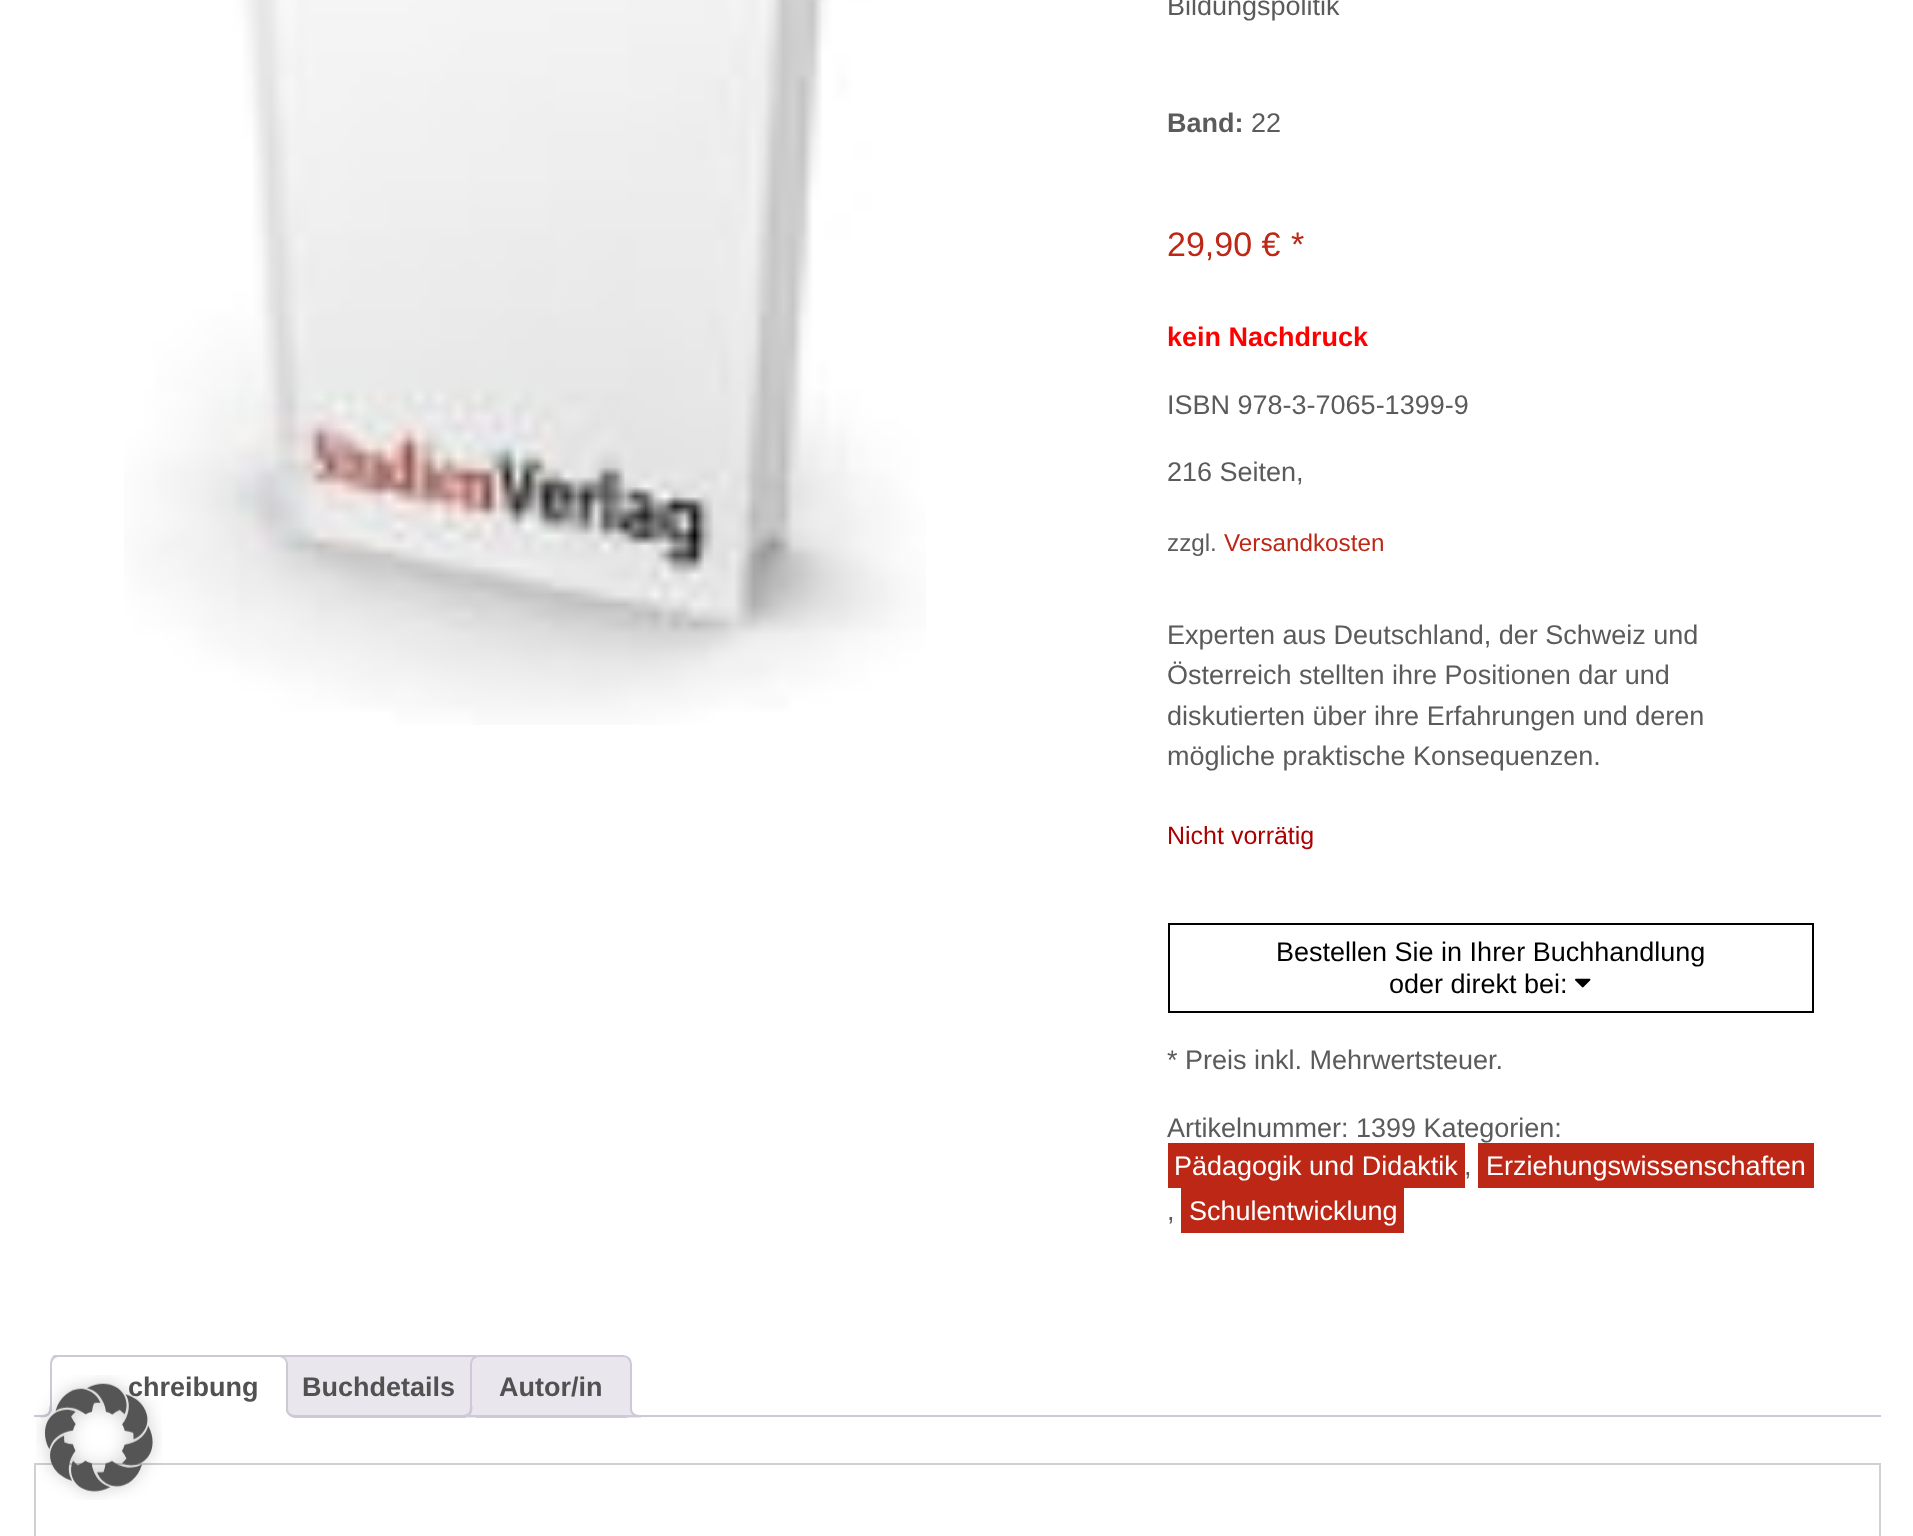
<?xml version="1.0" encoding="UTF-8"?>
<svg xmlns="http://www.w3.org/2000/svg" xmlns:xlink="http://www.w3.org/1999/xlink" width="1913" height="1536">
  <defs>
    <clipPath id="clip1"><rect x="34" y="1355" width="1847" height="63" /></clipPath>
  </defs>
  <rect width="100%" height="100%" fill="#ffffff" />
  <image x="124" y="0" width="802" height="725" xlink:href="image1.png" />
  <rect x="1169" y="924" width="644" height="88" fill="none" stroke="#000000" stroke-width="2" />
  <image x="1575" y="978" width="16" height="10" xlink:href="image2.png" />
  <rect x="1168" y="1143" width="297" height="45" fill="#bd2716" />
  <rect x="1478" y="1143" width="336" height="45" fill="#bd2716" />
  <rect x="1181" y="1188" width="223" height="45" fill="#bd2716" />
  <path d="M 281 1356 h 194 c 4.5 0 8 3.5 8 8 v 53 h -210 v -53 c 0 -4.5 3.5 -8 8 -8 z" fill="#e9e6ed" stroke="#cfc8d8" stroke-width="2" />
  <path d="M 479 1356 h 144 c 4.5 0 8 3.5 8 8 v 53 h -160 v -53 c 0 -4.5 3.5 -8 8 -8 z" fill="#e9e6ed" stroke="#cfc8d8" stroke-width="2" />
  <g clip-path="url(#clip1)">
    <path d="M 466 1417 v 5 c 7.5 0 11 -3.5 11 -11 h -5 c -0.5 3 -3 5.5 -6 6 z" fill="#e9e6ed" />
  </g>
  <path d="M 461 1406 h 11.5 c 0 8.5 -3 11.5 -11.5 11.5 z m 0 0 h 9 c 0 7 -2 9 -9 9 z" fill="#cfc8d8" fill-rule="evenodd" />
  <g clip-path="url(#clip1)">
    <path d="M 626 1411 c 0 7.5 3.5 11 11 11 v -4.5 c -3 -1 -5.5 -3.5 -6.5 -6.5 z" fill="#e9e6ed" />
  </g>
  <path d="M 630 1406 h 11 v 11.5 h -2 c -5 0 -9 -4 -9 -9 z m 2 0 h 9 v 9 c -4.5 0 -9 -1 -9 -6.5 z" fill="#cfc8d8" fill-rule="evenodd" />
  <rect x="34" y="1415" width="1847" height="2" fill="#cfc8d8" />
  <path d="M 59 1355 h 220 c 5 0 9 4 9 9 v 54 h -238 v -54 c 0 -5 4 -9 9 -9 z" fill="#ffffff" />
  <g clip-path="url(#clip1)">
    <path d="M 58 1357 c -1 0 -3 1 -4 2 l -2 -2 c 9 -11 41 -3 41 -3 h 189 l 3 3 l -1 2 c -1 -1 -3 -2 -5 -2 z" fill="#cfc8d8" />
  </g>
  <path d="M 288 1418 v -54 c 0 -2 -1 -5 -3 -7 l -1 2 c 1 1 2 3 2 5 v 51 z" fill="#cfc8d8" />
  <path d="M 288 1418 h -238 l 2 -3 h 234 z" fill="#ffffff" />
  <path d="M 50 1417 v -53 c 0 -2 1 -5 2 -7 l 2 2 c -1 1 -2 3 -2 5 v 51 z" fill="#cfc8d8" />
  <g clip-path="url(#clip1)">
    <path d="M 45 1417 v 5 c 7.5 0 11 -3.5 11 -11 h -4.5 c -1 3 -3.5 5.5 -6.5 6 z" fill="#ffffff" />
  </g>
  <path d="M 40.5 1406 h 11.5 c 0 8.5 -3.5 11.5 -11.5 11.5 z m 0 0 h 9 c 0 7 -2 9 -9 9 z" fill="#cfc8d8" fill-rule="evenodd" />
  <g clip-path="url(#clip1)">
    <path d="M 281 1411 c 0 9 4 11 12 11 v -4.5 c -3.5 -1 -6 -3.5 -7 -6.5 z" fill="#ffffff" />
  </g>
  <path d="M 286 1406 h 11 v 11.5 h -2 c -5 0 -9 -4 -9 -9 z m 2 0 h 9 v 9 c -4.5 0 -9 -1 -9 -6.5 z" fill="#cfc8d8" fill-rule="evenodd" />
  <rect x="35" y="1464" width="1845" height="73" fill="none" stroke="#d3ced2" stroke-width="2" />
  <text x="1167" y="15" style="font-family: Liberation Sans; font-size: 27px; fill: #5b5b5b">Bildungspolitik</text>
  <text x="1167" y="132" style="font-family: Liberation Sans; font-size: 27px; font-weight: bold; fill: #5b5b5b">Band:</text>
  <text x="1251" y="132" style="font-family: Liberation Sans; font-size: 27px; fill: #5b5b5b">22</text>
  <text x="1167" y="256" style="font-family: Liberation Sans; font-size: 34px; fill: #bd2716">29,90 €</text>
  <text x="1291" y="256" style="font-family: Liberation Sans; font-size: 34px; fill: #bd2716">*</text>
  <text x="1167" y="346" style="font-family: Liberation Sans; font-size: 27px; font-weight: bold; fill: #ff0000">kein Nachdruck</text>
  <text x="1167" y="414" style="font-family: Liberation Sans; font-size: 27px; fill: #5b5b5b">ISBN 978-3-7065-1399-9</text>
  <text x="1167" y="481" style="font-family: Liberation Sans; font-size: 27px; fill: #5b5b5b">216 Seiten,</text>
  <text x="1167" y="551" style="font-family: Liberation Sans; font-size: 24.25px; fill: #5b5b5b">zzgl.</text>
  <text x="1224" y="551" style="font-family: Liberation Sans; font-size: 24.25px; fill: #bd2716">Versandkosten</text>
  <text x="1167" y="644" style="font-family: Liberation Sans; font-size: 27px; fill: #5b5b5b">Experten aus Deutschland, der Schweiz und</text>
  <text x="1167" y="684" style="font-family: Liberation Sans; font-size: 27px; fill: #5b5b5b">Österreich stellten ihre Positionen dar und</text>
  <text x="1167" y="725" style="font-family: Liberation Sans; font-size: 27px; fill: #5b5b5b">diskutierten über ihre Erfahrungen und deren</text>
  <text x="1167" y="765" style="font-family: Liberation Sans; font-size: 27px; fill: #5b5b5b">mögliche praktische Konsequenzen.</text>
  <text x="1167" y="844" style="font-family: Liberation Sans; font-size: 25px; fill: #aa0000">Nicht vorrätig</text>
  <text x="1276" y="961" style="font-family: Liberation Sans; font-size: 27px; fill: #000000">Bestellen Sie in Ihrer Buchhandlung</text>
  <text x="1389" y="993" style="font-family: Liberation Sans; font-size: 27px; fill: #000000">oder direkt bei:</text>
  <text x="1167" y="1069" style="font-family: Liberation Sans; font-size: 27px; fill: #5b5b5b">* Preis inkl. Mehrwertsteuer.</text>
  <text x="1167" y="1137" style="font-family: Liberation Sans; font-size: 27px; fill: #5b5b5b">Artikelnummer: 1399 Kategorien:</text>
  <text x="1174" y="1175" style="font-family: Liberation Sans; font-size: 27px; fill: #ffffff">Pädagogik und Didaktik</text>
  <text x="1464" y="1175" style="font-family: Liberation Sans; font-size: 27px; fill: #5b5b5b">,</text>
  <text x="1486" y="1175" style="font-family: Liberation Sans; font-size: 27px; fill: #ffffff">Erziehungswissenschaften</text>
  <text x="1167" y="1220" style="font-family: Liberation Sans; font-size: 27px; fill: #5b5b5b">,</text>
  <text x="1189" y="1220" style="font-family: Liberation Sans; font-size: 27px; fill: #ffffff">Schulentwicklung</text>
  <text x="128" y="1396" style="font-family: Liberation Sans; font-size: 27px; font-weight: bold; fill: #515151">chreibung</text>
  <text x="302" y="1396" style="font-family: Liberation Sans; font-size: 27px; font-weight: bold; fill: #515151">Buchdetails</text>
  <text x="499" y="1396" style="font-family: Liberation Sans; font-size: 27px; font-weight: bold; fill: #515151">Autor/in</text>
  <image x="36" y="1375" width="126" height="125" xlink:href="image3.png" />
</svg>
